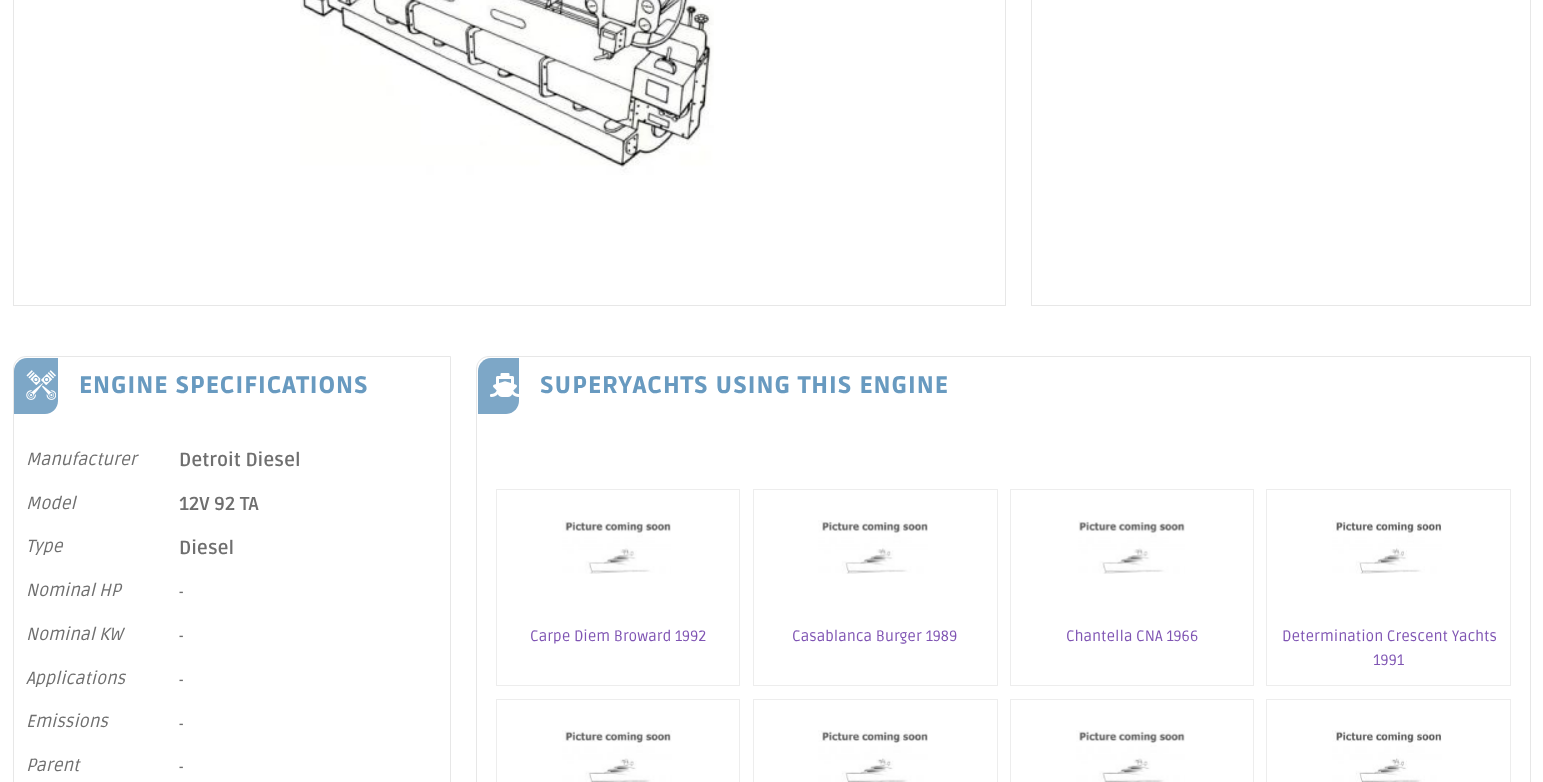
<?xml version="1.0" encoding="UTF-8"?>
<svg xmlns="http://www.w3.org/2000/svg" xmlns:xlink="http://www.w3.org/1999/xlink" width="1543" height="782">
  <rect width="100%" height="100%" fill="#ffffff" />
  <rect x="13.5" y="-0.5" width="992" height="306" fill="none" stroke="#e7e7e7" />
  <image x="300" y="0" width="414" height="175" xlink:href="image1.png" />
  <rect x="1031.5" y="-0.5" width="499" height="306" fill="none" stroke="#e7e7e7" />
  <path d="M 26 356.5 h 424.5 v 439 h -437 v -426.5 c 0 -7 5.5 -12.5 12.5 -12.5 z" fill="none" stroke="#e7e7e7" />
  <path d="M 27 358 h 31 v 43 c 0 7 -6 13 -13 13 h -31 v -43 c 0 -7 6 -13 13 -13 z" fill="#7da7c7" />
  <image x="26" y="370" width="30" height="30" xlink:href="image2.png" />
  <path d="M 489 356.5 h 1041.5 v 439 h -1054 v -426.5 c 0 -7 5.5 -12.5 12.5 -12.5 z" fill="none" stroke="#e7e7e7" />
  <path d="M 491 358 h 28 v 43 c 0 7 -6 13 -13 13 h -28 v -43 c 0 -7 6 -13 13 -13 z" fill="#7da7c7" />
  <image x="490" y="373" width="29" height="24" xlink:href="image3.png" />
  <rect x="496.5" y="489.5" width="243" height="196" fill="none" stroke="#ededed" />
  <image x="562" y="520" width="109" height="54" xlink:href="image4.png" />
  <rect x="753.5" y="489.5" width="244" height="196" fill="none" stroke="#ededed" />
  <image x="818" y="520" width="110" height="54" xlink:href="image5.png" />
  <rect x="1010.5" y="489.5" width="243" height="196" fill="none" stroke="#ededed" />
  <image x="1078" y="520" width="107" height="54" xlink:href="image6.png" />
  <rect x="1266.5" y="489.5" width="244" height="196" fill="none" stroke="#ededed" />
  <image x="1332" y="520" width="110" height="54" xlink:href="image7.png" />
  <rect x="496.5" y="699.5" width="243" height="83" fill="none" stroke="#ededed" />
  <image x="562" y="730" width="110" height="52" xlink:href="image8.png" />
  <rect x="753.5" y="699.5" width="244" height="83" fill="none" stroke="#ededed" />
  <image x="818" y="730" width="110" height="52" xlink:href="image9.png" />
  <rect x="1010.5" y="699.5" width="243" height="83" fill="none" stroke="#ededed" />
  <image x="1076" y="730" width="109" height="52" xlink:href="image10.png" />
  <rect x="1266.5" y="699.5" width="244" height="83" fill="none" stroke="#ededed" />
  <image x="1332" y="730" width="110" height="52" xlink:href="image11.png" />
  <text x="79" y="393" style="font-family: Ruda; font-size: 23.75px; font-weight: 900; letter-spacing: 1px; fill: #689ac0">ENGINE SPECIFICATIONS</text>
  <text x="26" y="465" style="font-family: Ruda; font-size: 17.5px; font-style: italic; fill: #6f6f6f">Manufacturer</text>
  <text x="179" y="466" style="font-family: Ruda; font-size: 18.75px; font-weight: bold; fill: #6f6f6f">Detroit Diesel</text>
  <text x="26" y="509" style="font-family: Ruda; font-size: 17.5px; font-style: italic; fill: #6f6f6f">Model</text>
  <text x="179" y="510" style="font-family: Ruda; font-size: 18.75px; font-weight: bold; fill: #6f6f6f">12V 92 TA</text>
  <text x="26" y="552" style="font-family: Ruda; font-size: 17.5px; font-style: italic; fill: #6f6f6f">Type</text>
  <text x="179" y="554" style="font-family: Ruda; font-size: 18.75px; font-weight: bold; fill: #6f6f6f">Diesel</text>
  <text x="26" y="596" style="font-family: Ruda; font-size: 17.5px; font-style: italic; fill: #6f6f6f">Nominal HP</text>
  <text x="179" y="597" style="font-family: Ruda; font-size: 14px; font-weight: bold; fill: #6f6f6f">-</text>
  <text x="26" y="640" style="font-family: Ruda; font-size: 17.5px; font-style: italic; fill: #6f6f6f">Nominal KW</text>
  <text x="179" y="641" style="font-family: Ruda; font-size: 14px; font-weight: bold; fill: #6f6f6f">-</text>
  <text x="26" y="684" style="font-family: Ruda; font-size: 17.5px; font-style: italic; fill: #6f6f6f">Applications</text>
  <text x="179" y="685" style="font-family: Ruda; font-size: 14px; font-weight: bold; fill: #6f6f6f">-</text>
  <text x="26" y="727" style="font-family: Ruda; font-size: 17.5px; font-style: italic; fill: #6f6f6f">Emissions</text>
  <text x="179" y="729" style="font-family: Ruda; font-size: 14px; font-weight: bold; fill: #6f6f6f">-</text>
  <text x="26" y="771" style="font-family: Ruda; font-size: 17.5px; font-style: italic; fill: #6f6f6f">Parent</text>
  <text x="179" y="772" style="font-family: Ruda; font-size: 14px; font-weight: bold; fill: #6f6f6f">-</text>
  <text x="540" y="393" style="font-family: Ruda; font-size: 23.75px; font-weight: 900; letter-spacing: 1px; fill: #689ac0">SUPERYACHTS USING THIS ENGINE</text>
  <text x="530" y="641" style="font-family: Ruda; font-size: 15px; fill: #7f54b3">Carpe Diem Broward 1992</text>
  <text x="792" y="641" style="font-family: Ruda; font-size: 15px; fill: #7f54b3">Casablanca Burger 1989</text>
  <text x="1066" y="641" style="font-family: Ruda; font-size: 15px; fill: #7f54b3">Chantella CNA 1966</text>
  <text x="1282" y="641" style="font-family: Ruda; font-size: 15px; fill: #7f54b3">Determination Crescent Yachts</text>
  <text x="1373" y="665" style="font-family: Ruda; font-size: 15px; fill: #7f54b3">1991</text>
</svg>
